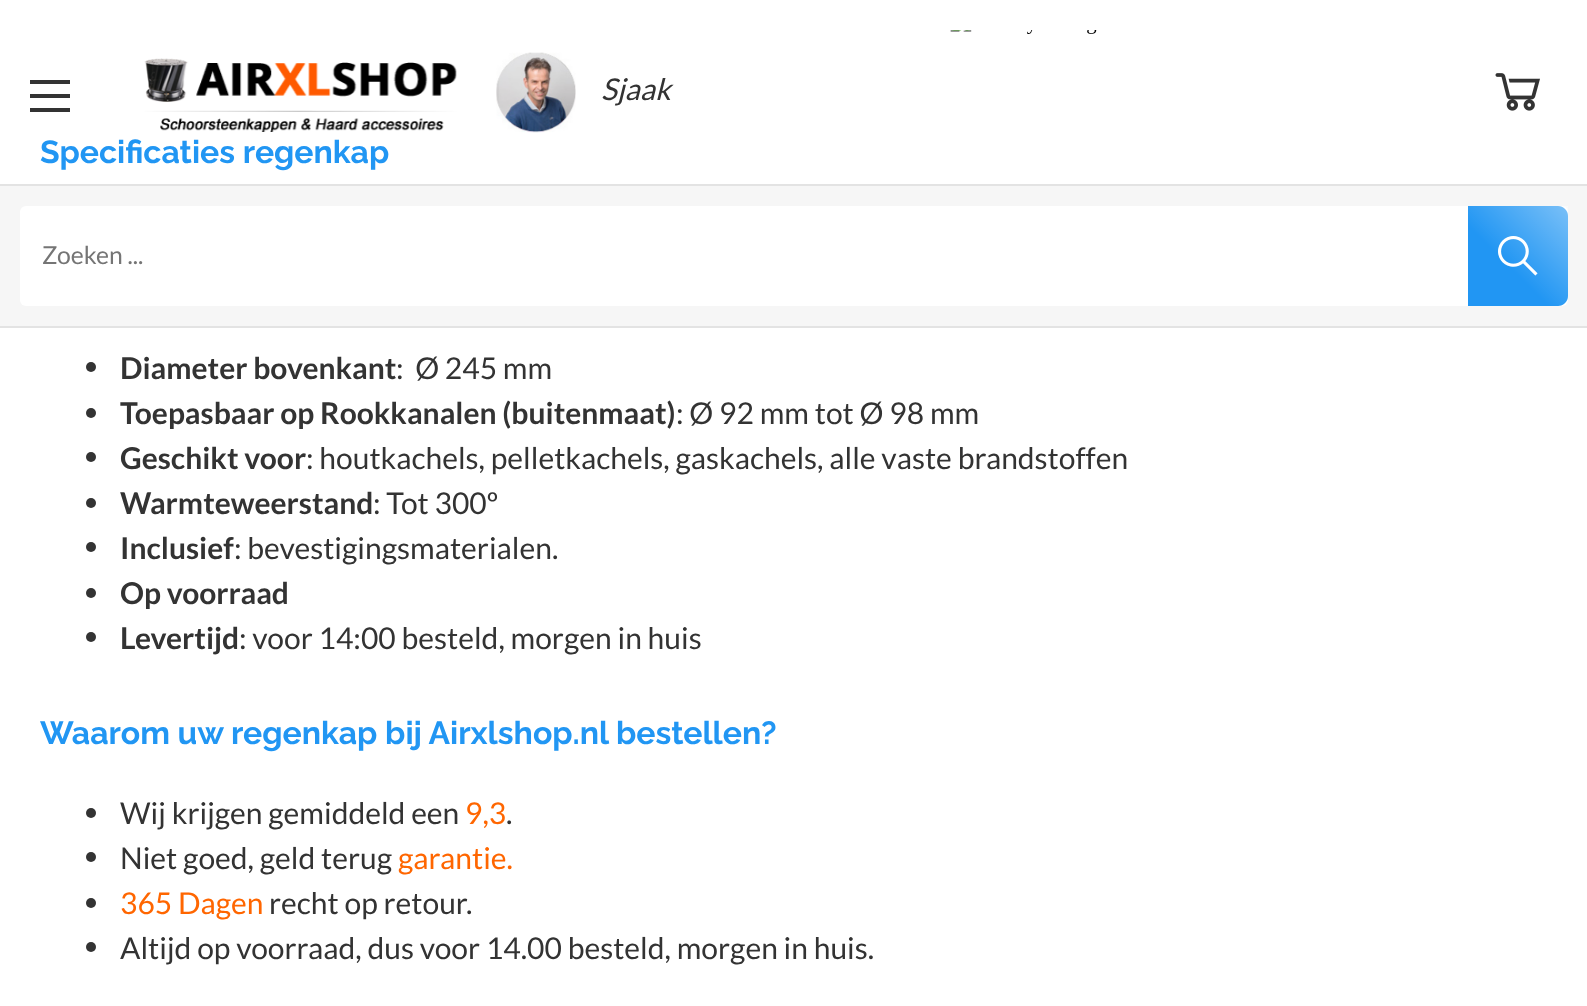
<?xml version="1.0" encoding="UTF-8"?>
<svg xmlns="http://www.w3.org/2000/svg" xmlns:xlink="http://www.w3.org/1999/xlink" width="1587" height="1006">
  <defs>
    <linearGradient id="g1" gradientUnits="userSpaceOnUse" x1="1568" y1="206" x2="1468" y2="306"><stop offset="0" stop-color="#ffffff" stop-opacity="0.4" /><stop offset="0.6" stop-color="#ffffff" stop-opacity="0" /></linearGradient>
  </defs>
  <rect width="100%" height="100%" fill="#ffffff" />
  <image x="950" y="30" width="147" height="4" xlink:href="image1.png" />
  <image x="144" y="58" width="313" height="74" xlink:href="image2.png" />
  <image x="496" y="52" width="80" height="81" xlink:href="image3.png" />
  <image x="1495" y="73" width="45" height="38" xlink:href="image4.png" />
  <rect y="186" width="1587" height="140" fill="#f6f6f6" />
  <rect y="184" width="1587" height="2" fill="#e3e3e3" />
  <rect y="326" width="1587" height="2" fill="#e3e3e3" />
  <rect x="20" y="206" width="1548" height="100" rx="6" fill="#ffffff" />
  <path d="M 1468 206 h 90 c 5.5 0 10 4.5 10 10 v 80 c 0 5.5 -4.5 10 -10 10 h -90 z" fill="#2196f3" />
  <rect x="1468" y="206" width="100" height="100" fill="url(#g1)" />
  <image x="1498" y="236" width="40" height="40" xlink:href="image5.png" />
  <rect x="30" y="80" width="40" height="4" fill="#333333" />
  <rect x="30" y="94" width="40" height="4" fill="#333333" />
  <rect x="30" y="108" width="40" height="4" fill="#333333" />
  <circle cx="91" cy="367" r="5" fill="#333333" />
  <circle cx="91" cy="413" r="5" fill="#333333" />
  <circle cx="91" cy="457" r="5" fill="#333333" />
  <circle cx="91" cy="503" r="5" fill="#333333" />
  <circle cx="91" cy="547" r="5" fill="#333333" />
  <circle cx="91" cy="593" r="5" fill="#333333" />
  <circle cx="91" cy="637" r="5" fill="#333333" />
  <circle cx="91" cy="813" r="5" fill="#333333" />
  <circle cx="91" cy="857" r="5" fill="#333333" />
  <circle cx="91" cy="903" r="5" fill="#333333" />
  <circle cx="91" cy="947" r="5" fill="#333333" />
  <text x="601" y="100" style="font-family: Lato; font-size: 30px; font-style: italic; fill: #333333">Sjaak</text>
  <text x="42" y="264" style="font-family: Lato; font-size: 24.75px; fill: #757575">Zoeken ...</text>
  <text x="40" y="163" style="font-family: Raleway; font-size: 32px; font-weight: bold; fill: #2196f3">Specificaties regenkap</text>
  <text x="120" y="379" style="font-family: Lato; font-size: 30px; font-weight: bold; fill: #333333">Diameter bovenkant</text>
  <text x="396" y="379" style="font-family: Lato; font-size: 30px; fill: #333333" xml:space="preserve">:  Ø 245 mm</text>
  <text x="120" y="424" style="font-family: Lato; font-size: 30px; font-weight: bold; fill: #333333">Toepasbaar op Rookkanalen (buitenmaat)</text>
  <text x="676" y="424" style="font-family: Lato; font-size: 30px; fill: #333333">: Ø 92 mm tot Ø 98 mm</text>
  <text x="120" y="469" style="font-family: Lato; font-size: 30px; font-weight: bold; fill: #333333">Geschikt voor</text>
  <text x="306" y="469" style="font-family: Lato; font-size: 30px; fill: #333333">: houtkachels, pelletkachels, gaskachels, alle vaste brandstoffen</text>
  <text x="120" y="514" style="font-family: Lato; font-size: 30px; font-weight: bold; fill: #333333">Warmteweerstand</text>
  <text x="373" y="514" style="font-family: Lato; font-size: 30px; fill: #333333">: Tot 300º</text>
  <text x="120" y="559" style="font-family: Lato; font-size: 30px; font-weight: bold; fill: #333333">Inclusief</text>
  <text x="234" y="559" style="font-family: Lato; font-size: 30px; fill: #333333">: bevestigingsmaterialen.</text>
  <text x="120" y="604" style="font-family: Lato; font-size: 30px; font-weight: bold; fill: #333333">Op voorraad</text>
  <text x="120" y="649" style="font-family: Lato; font-size: 30px; font-weight: bold; fill: #333333">Levertijd</text>
  <text x="239" y="649" style="font-family: Lato; font-size: 30px; fill: #333333">: voor 14:00 besteld, morgen in huis</text>
  <text x="40" y="744" style="font-family: Raleway; font-size: 32px; font-weight: bold; fill: #2196f3">Waarom uw regenkap bij Airxlshop.nl bestellen?</text>
  <text x="120" y="824" style="font-family: Lato; font-size: 30px; fill: #333333">Wij krijgen gemiddeld een</text>
  <text x="465" y="824" style="font-family: Lato; font-size: 30px; fill: #ff6600">9,3</text>
  <text x="506" y="824" style="font-family: Lato; font-size: 30px; fill: #333333">.</text>
  <text x="120" y="869" style="font-family: Lato; font-size: 30px; fill: #333333">Niet goed, geld terug</text>
  <text x="398" y="869" style="font-family: Lato; font-size: 30px; fill: #ff6600">garantie.</text>
  <text x="120" y="914" style="font-family: Lato; font-size: 30px; fill: #ff6600">365 Dagen</text>
  <text x="269" y="914" style="font-family: Lato; font-size: 30px; fill: #333333">recht op retour.</text>
  <text x="120" y="959" style="font-family: Lato; font-size: 30px; fill: #333333">Altijd op voorraad, dus voor 14.00 besteld, morgen in huis.</text>
</svg>
